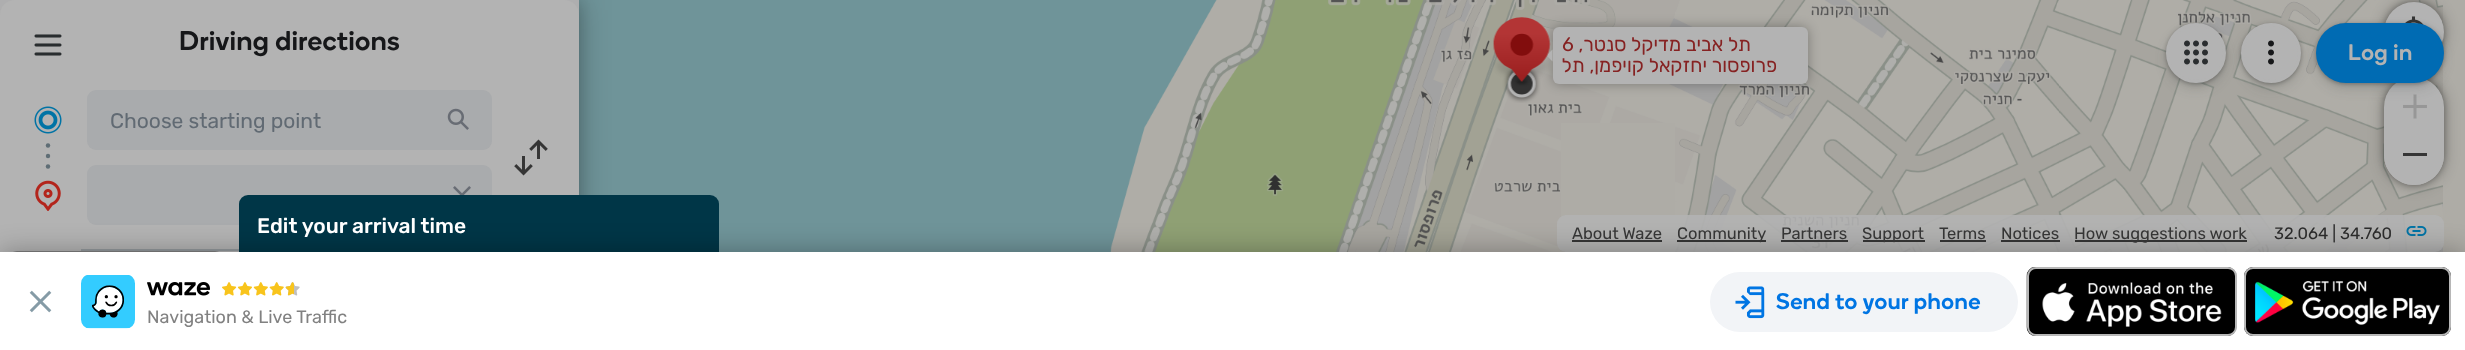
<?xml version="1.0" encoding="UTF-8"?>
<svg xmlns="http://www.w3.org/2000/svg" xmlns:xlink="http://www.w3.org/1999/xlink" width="2465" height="350">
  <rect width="100%" height="100%" fill="#aeaca6" />
  <rect x="579" width="328" height="252" fill="#6f9499" />
  <rect y="3" width="579" height="252" fill="#000000" fill-opacity="0.12" filter="blur(6px)" />
  <rect width="579" height="252" fill="#000000" fill-opacity="0.3" filter="blur(15px)" />
  <rect width="579" height="15" fill="#aeaeaf" />
  <path d="M 15 0 h 549 c 8.5 0 15 6.5 15 15 v 75 h -579 v -75 c 0 -8.5 6.5 -15 15 -15 z" fill="#b3b3b3" />
  <image x="34" y="34" width="28" height="22" xlink:href="image1.png" />
  <rect y="90" width="579" height="159" fill="#b3b3b3" />
  <circle cx="48" cy="145.5" r="2.2" fill="#5e6d75" />
  <circle cx="48" cy="156" r="2.2" fill="#5e6d75" />
  <circle cx="48" cy="166.5" r="2.2" fill="#5e6d75" />
  <image x="34" y="106" width="28" height="28" xlink:href="image2.png" />
  <rect x="87" y="90" width="405" height="60" rx="9" fill="#a9abad" />
  <image x="447" y="108" width="22" height="22" xlink:href="image3.png" />
  <image x="514" y="139" width="34" height="37" xlink:href="image4.png" />
  <image x="35" y="180" width="26" height="31" xlink:href="image5.png" />
  <rect x="87" y="165" width="405" height="60" rx="9" fill="#a9abad" />
  <image x="453" y="186" width="18" height="9" xlink:href="image6.png" />
  <rect y="249" width="239" height="3" fill="#b3b3b3" />
  <rect x="81" y="249" width="158" height="2" fill="#94999d" />
  <image x="907" y="0" width="384" height="123" xlink:href="image7.png" />
  <image x="1291" y="0" width="384" height="123" xlink:href="image8.png" />
  <image x="1675" y="0" width="384" height="123" xlink:href="image9.png" />
  <image x="2059" y="0" width="384" height="123" xlink:href="image10.png" />
  <image x="907" y="123" width="384" height="129" xlink:href="image11.png" />
  <image x="1291" y="123" width="270" height="129" xlink:href="image12.png" />
  <image x="1675" y="123" width="384" height="129" xlink:href="image13.png" />
  <image x="2059" y="123" width="384" height="129" xlink:href="image14.png" />
  <rect x="1553" y="27" width="255" height="57" rx="6" fill="#000000" fill-opacity="0.3" filter="blur(6px)" />
  <path d="M 1552.5 49.5 v 12 l -6 -6 z" fill="#b3b3b3" />
  <image x="1493" y="17" width="58" height="86" xlink:href="image15.png" />
  <rect x="1553" y="27" width="255" height="57" rx="6" fill="#b3b3b3" />
  <rect x="2384" y="2" width="60" height="60" rx="30" fill="#000000" fill-opacity="0.3" filter="blur(7.5px)" />
  <rect x="2384" y="2" width="60" height="60" rx="30" fill="#000000" fill-opacity="0.3" filter="blur(3px)" />
  <circle cx="2414" cy="32" r="30" fill="#b3b3b3" />
  <image x="2405" y="16" width="19" height="9" xlink:href="image16.png" />
  <rect x="2384" y="77" width="60" height="108" rx="30" fill="#000000" fill-opacity="0.3" filter="blur(7.5px)" />
  <rect x="2384" y="77" width="60" height="108" rx="30" fill="#000000" fill-opacity="0.3" filter="blur(3px)" />
  <rect x="2384" y="77" width="60" height="108" rx="30" fill="#b3b3b3" />
  <image x="2403" y="94" width="24" height="25" xlink:href="image17.png" />
  <path d="M 2384 131 h 60 v 24 c 0 16.5 -13.5 30 -30 30 c -16.5 0 -30 -13.5 -30 -30 z" fill="#b3b3b3" />
  <rect x="2403" y="153" width="24" height="3" fill="#353535" />
  <rect x="1557" y="215" width="887" height="37" rx="9" fill="#b3b3b3" fill-opacity="0.9" />
  <rect x="1572" y="240" width="90" height="2" fill="#353535" />
  <rect x="1677" y="240" width="89" height="2" fill="#353535" />
  <rect x="1781" y="240" width="67" height="2" fill="#353535" />
  <rect x="1863" y="240" width="62" height="2" fill="#353535" />
  <rect x="1940" y="240" width="46" height="2" fill="#353535" />
  <rect x="2001" y="240" width="59" height="2" fill="#353535" />
  <rect x="2075" y="240" width="172" height="2" fill="#353535" />
  <image x="2406" y="226" width="21" height="10" xlink:href="image18.png" />
  <rect x="2166" y="29" width="60" height="60" rx="30" fill="#2a2d2f" fill-opacity="0.15" filter="blur(6px)" />
  <rect x="2166" y="24" width="60" height="60" rx="30" fill="#000000" fill-opacity="0.3" filter="blur(2px)" />
  <circle cx="2196" cy="53" r="28.5" fill="#b3b3b3" stroke="#b3b3b3" stroke-width="3" />
  <image x="2184" y="40" width="24" height="25" xlink:href="image19.png" />
  <rect x="2241" y="29" width="60" height="60" rx="30" fill="#2a2d2f" fill-opacity="0.15" filter="blur(6px)" />
  <rect x="2241" y="24" width="60" height="60" rx="30" fill="#000000" fill-opacity="0.3" filter="blur(2px)" />
  <circle cx="2271" cy="53" r="28.5" fill="#b3b3b3" stroke="#b3b3b3" stroke-width="3" />
  <image x="2268" y="40" width="6" height="25" xlink:href="image20.png" />
  <rect x="2316" y="29" width="128" height="60" rx="30" fill="#2a2d2f" fill-opacity="0.15" filter="blur(6px)" />
  <rect x="2316" y="24" width="128" height="60" rx="30" fill="#000000" fill-opacity="0.3" filter="blur(2px)" />
  <rect x="2316" y="23" width="128" height="60" rx="30" fill="#006bb3" />
  <rect x="239" y="195" width="480" height="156" rx="9" fill="#003647" />
  <rect x="8" y="251" width="216" height="66" rx="9" fill="#808080" />
  <rect y="252" width="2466" height="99" fill="#000000" fill-opacity="0.3" filter="blur(13.5px)" />
  <rect y="252" width="2465" height="98" fill="#ffffff" />
  <image x="29" y="290" width="23" height="23" xlink:href="image21.png" />
  <rect x="1710" y="272" width="308" height="60" rx="30" fill="#f2f4f7" />
  <image x="1735" y="286" width="30" height="33" xlink:href="image22.png" />
  <image x="2026" y="267" width="211" height="69" xlink:href="image23.png" />
  <rect x="2028" y="268" width="208" height="67" rx="8" fill="none" stroke="#b7b7b7" stroke-width="2" />
  <image x="2244" y="267" width="207" height="69" xlink:href="image24.png" />
  <rect x="2245" y="268" width="205" height="67" rx="8" fill="none" stroke="#b7b7b7" stroke-width="2" />
  <image x="81" y="275" width="54" height="54" xlink:href="image25.png" />
  <image x="147" y="282" width="63" height="14" xlink:href="image26.png" />
  <image x="222" y="282" width="78" height="14" xlink:href="image27.png" />
  <text x="179" y="50" style="font-family: 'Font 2'; font-size: 27px; font-weight: 500; letter-spacing: 0.5px; fill: #161719">Driving directions</text>
  <text x="110" y="128" style="font-family: Rubik; font-size: 21px; fill: #616a73">Choose starting point</text>
  <text x="1562" y="51" style="font-family: Rubik; font-size: 19.5px; fill: #862222">6</text>
  <text x="1751" y="51" style="font-family: Rubik; font-size: 19.5px; direction: rtl; fill: #862222">תל אביב מדיקל סנטר,</text>
  <text x="1777" y="72" style="font-family: Rubik; font-size: 19.5px; direction: rtl; fill: #862222">פרופסור יחזקאל קויפמן, תל</text>
  <text x="1572" y="239" style="font-family: Rubik; font-size: 16.5px; fill: #353535">About Waze</text>
  <text x="1677" y="239" style="font-family: Rubik; font-size: 16.5px; fill: #353535">Community</text>
  <text x="1781" y="239" style="font-family: Rubik; font-size: 16.5px; fill: #353535">Partners</text>
  <text x="1862" y="239" style="font-family: Rubik; font-size: 16.5px; fill: #353535">Support</text>
  <text x="1939" y="239" style="font-family: Rubik; font-size: 16.5px; fill: #353535">Terms</text>
  <text x="2001" y="239" style="font-family: Rubik; font-size: 16.5px; fill: #353535">Notices</text>
  <text x="2074" y="239" style="font-family: Rubik; font-size: 16.5px; fill: #353535">How suggestions work</text>
  <text x="2274" y="239" style="font-family: Rubik; font-size: 16.5px; fill: #2b2b2b">32.064 | 34.760</text>
  <text x="2348" y="60" style="font-family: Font; font-size: 22.5px; font-weight: 500; letter-spacing: 0.5px; fill: #b3b3b3">Log in</text>
  <text x="1776" y="309" style="font-family: Font; font-size: 22.5px; font-weight: 500; letter-spacing: 0.5px; fill: #0075e3">Send to your phone</text>
  <text x="147" y="323" style="font-family: Rubik; font-size: 18px; fill: #818181">Navigation &amp; Live Traffic</text>
  <text x="257" y="233" style="font-family: Rubik; font-size: 21px; font-weight: 500; fill: #ffffff">Edit your arrival time</text>
</svg>
